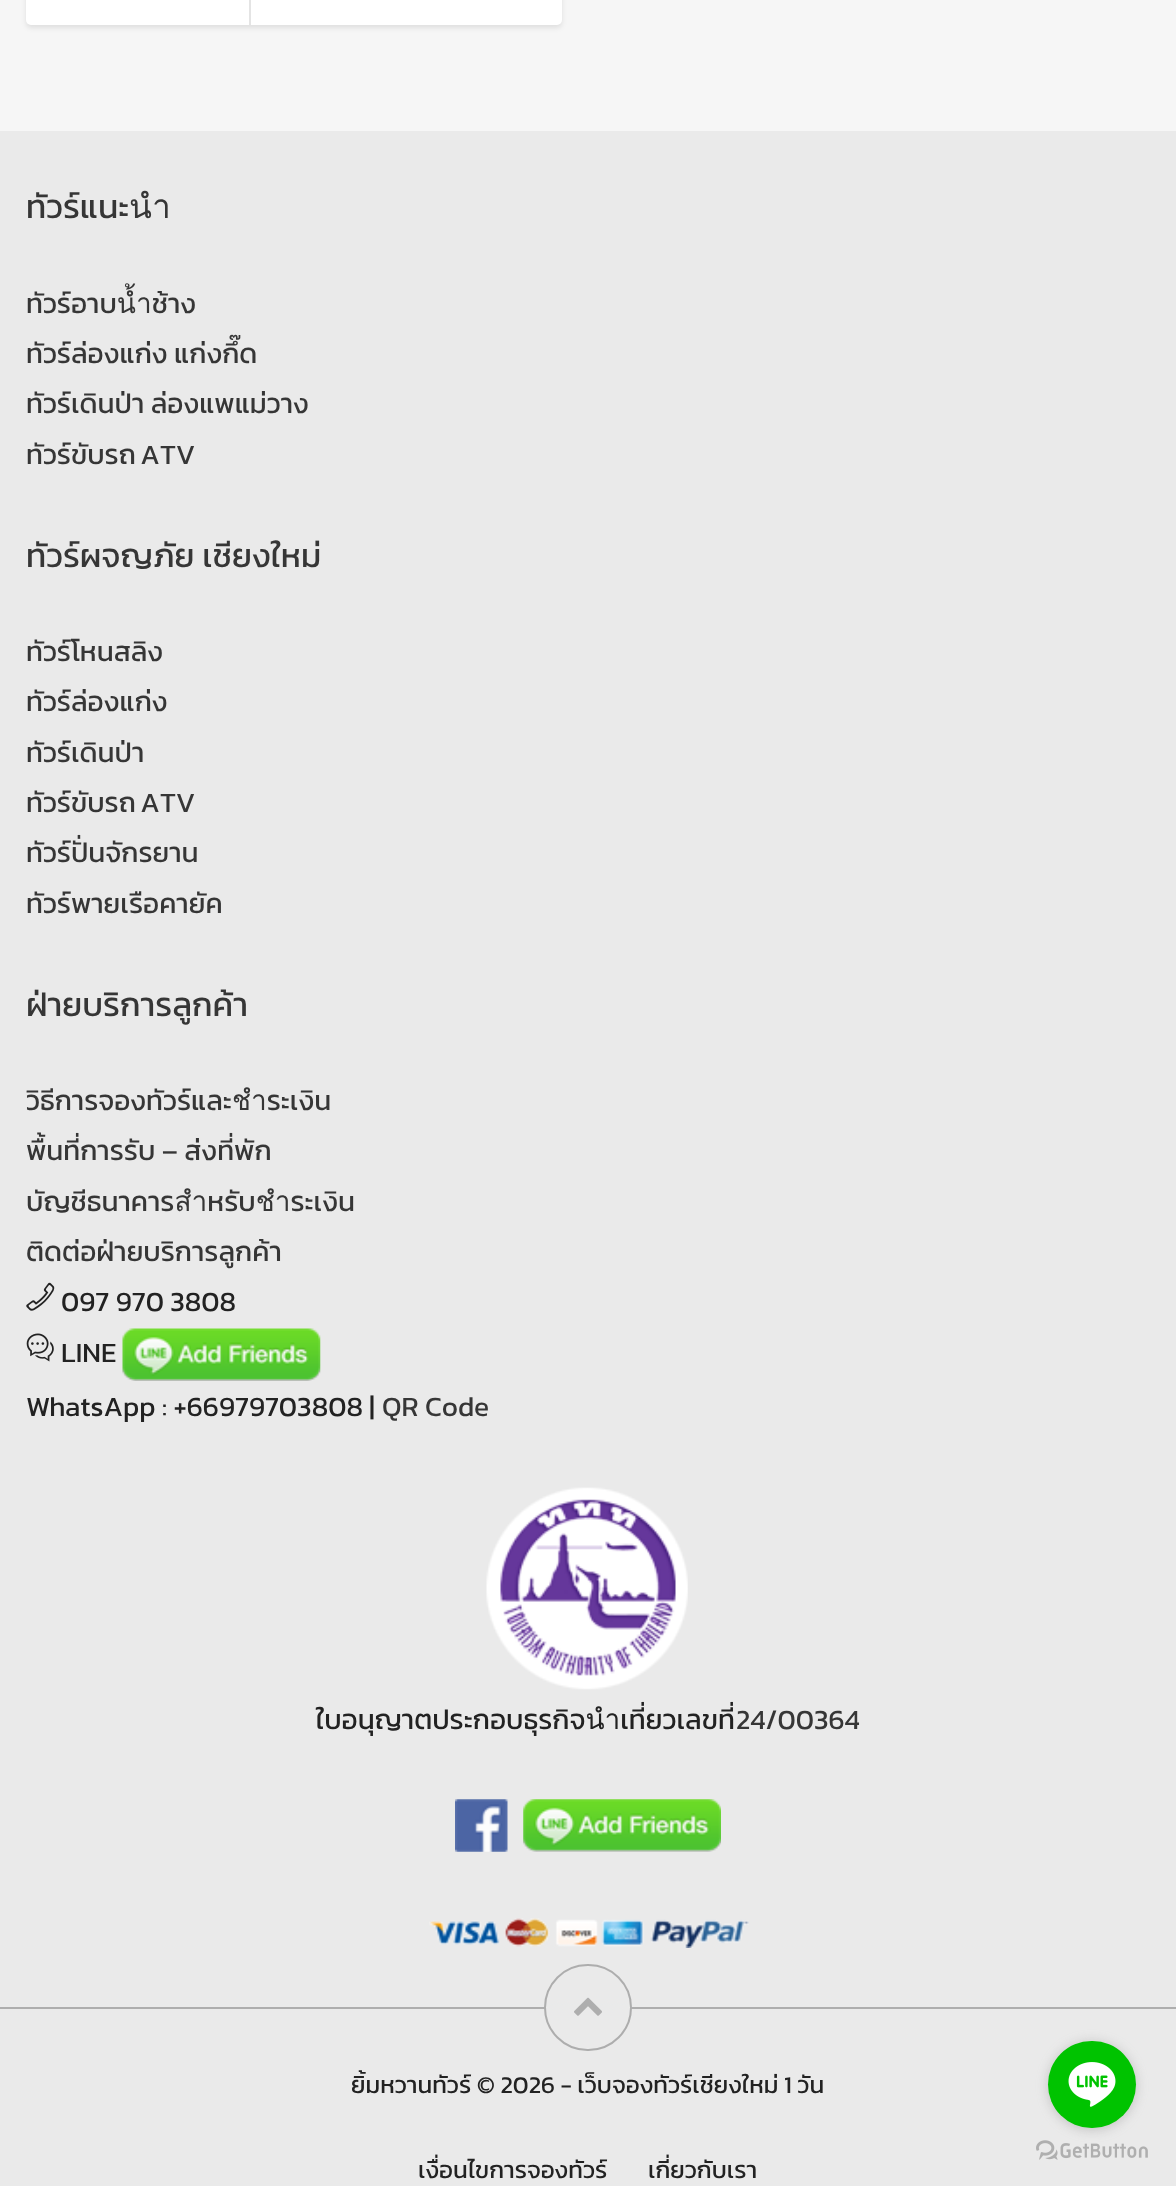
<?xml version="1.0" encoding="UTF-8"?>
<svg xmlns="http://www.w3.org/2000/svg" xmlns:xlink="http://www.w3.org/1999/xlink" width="1176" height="2186">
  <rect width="100%" height="100%" fill="#f6f6f6" />
  <rect x="26" y="-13" width="536" height="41" rx="5" fill="#000000" fill-opacity="0.09" filter="blur(2.5px)" />
  <rect x="26" y="-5" width="536" height="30" rx="5" fill="#ffffff" />
  <rect x="249" width="2" height="25" fill="#e4e4e4" />
  <rect y="131" width="1176" height="2055" fill="#eaeaea" />
  <image x="26" y="1282" width="29" height="29" xlink:href="image1.png" />
  <image x="26" y="1333" width="28" height="29" xlink:href="image2.png" />
  <image x="122" y="1328" width="199" height="53" xlink:href="image3.png" />
  <image x="486" y="1487" width="202" height="203" xlink:href="image4.png" />
  <image x="455" y="1799" width="53" height="53" xlink:href="image5.png" />
  <image x="523" y="1799" width="198" height="53" xlink:href="image6.png" />
  <image x="429" y="1918" width="320" height="30" xlink:href="image7.png" />
  <rect y="2007" width="1176" height="2" fill="#aeaeae" />
  <rect x="544" y="1964" width="88" height="87" rx="43.5" fill="#eaeaea" />
  <rect x="545" y="1965" width="86" height="85" rx="42.5" fill="none" stroke="#222222" stroke-opacity="0.3" stroke-width="2" />
  <image x="574" y="1997" width="28" height="19" xlink:href="image8.png" />
  <image x="1036" y="2140" width="112" height="20" xlink:href="image10.png" />
  <rect x="1048" y="2042" width="88" height="88" rx="44" fill="#888888" fill-opacity="0.4" filter="blur(6px)" />
  <rect x="1048" y="2041" width="88" height="87" rx="43.5" fill="#00c300" />
  <image x="1068" y="2062" width="48" height="45" xlink:href="image9.png" />
  <text x="26" y="218" style="font-family: Kanit; font-size: 33.5px; fill: #363636">ทัวร์แนะนำ</text>
  <text x="26" y="313" style="font-family: Kanit; font-size: 28px; fill: #363636">ทัวร์อาบน้ำช้าง</text>
  <text x="26" y="363" style="font-family: Kanit; font-size: 28px; fill: #363636">ทัวร์ล่องแก่ง แก่งกึ๊ด</text>
  <text x="26" y="413" style="font-family: Kanit; font-size: 28px; fill: #363636">ทัวร์เดินป่า ล่องแพแม่วาง</text>
  <text x="26" y="464" word-spacing="-2" style="font-family: Kanit; font-size: 28px; fill: #363636">ทัวร์ขับรถ ATV</text>
  <text x="26" y="567" style="font-family: Kanit; font-size: 33.5px; fill: #363636">ทัวร์ผจญภัย เชียงใหม่</text>
  <text x="26" y="661" style="font-family: Kanit; font-size: 28px; fill: #363636">ทัวร์โหนสลิง</text>
  <text x="26" y="711" style="font-family: Kanit; font-size: 28px; fill: #363636">ทัวร์ล่องแก่ง</text>
  <text x="26" y="762" style="font-family: Kanit; font-size: 28px; fill: #363636">ทัวร์เดินป่า</text>
  <text x="26" y="812" word-spacing="-2" style="font-family: Kanit; font-size: 28px; fill: #363636">ทัวร์ขับรถ ATV</text>
  <text x="26" y="862" style="font-family: Kanit; font-size: 28px; fill: #363636">ทัวร์ปั่นจักรยาน</text>
  <text x="26" y="913" style="font-family: Kanit; font-size: 28px; fill: #363636">ทัวร์พายเรือคายัค</text>
  <text x="26" y="1016" style="font-family: Kanit; font-size: 33.5px; fill: #363636">ฝ่ายบริการลูกค้า</text>
  <text x="26" y="1110" style="font-family: Kanit; font-size: 28px; fill: #363636">วิธีการจองทัวร์และชำระเงิน</text>
  <text x="26" y="1160" style="font-family: Kanit; font-size: 28px; fill: #363636">พื้นที่การรับ – ส่งที่พัก</text>
  <text x="26" y="1211" style="font-family: Kanit; font-size: 28px; fill: #363636">บัญชีธนาคารสำหรับชำระเงิน</text>
  <text x="26" y="1261" style="font-family: Kanit; font-size: 28px; fill: #363636">ติดต่อฝ่ายบริการลูกค้า</text>
  <text x="61" y="1311" style="font-family: Kanit; font-size: 28px; fill: #222222">097 970 3808</text>
  <text x="61" y="1362" style="font-family: Kanit; font-size: 28px; fill: #222222">LINE</text>
  <text x="26" y="1416" style="font-family: Kanit; font-size: 28px; fill: #222222">WhatsApp : +66979703808 |</text>
  <text x="382" y="1416" style="font-family: Kanit; font-size: 28px; fill: #363636">QR Code</text>
  <text x="316" y="1729" style="font-family: Kanit; font-size: 28px; fill: #222222">ใบอนุญาตประกอบธุรกิจนำเที่ยวเลขที่</text>
  <text x="736" y="1729" style="font-family: Kanit; font-size: 28px; fill: #363636">24/00364</text>
  <text x="351" y="2093" style="font-family: Kanit; font-size: 24.25px; fill: #222222">ยิ้มหวานทัวร์ © 2026 - เว็บจองทัวร์เชียงใหม่ 1 วัน</text>
  <text x="418" y="2178" style="font-family: Kanit; font-size: 24.25px; fill: #222222">เงื่อนไขการจองทัวร์</text>
  <text x="648" y="2178" style="font-family: Kanit; font-size: 24.25px; fill: #222222">เกี่ยวกับเรา</text>
</svg>
